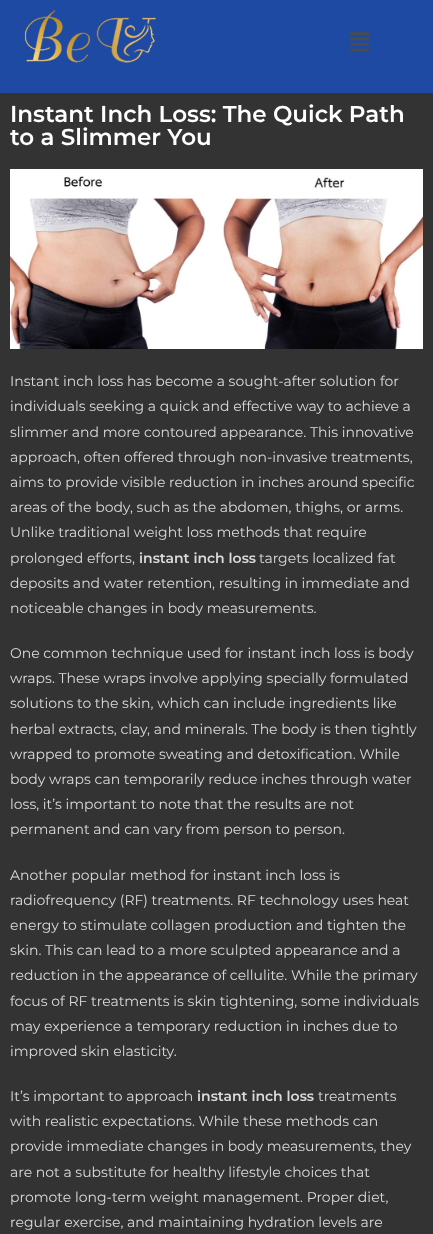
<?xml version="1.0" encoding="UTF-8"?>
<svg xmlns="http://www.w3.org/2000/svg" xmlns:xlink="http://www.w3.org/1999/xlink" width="433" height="1234">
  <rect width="100%" height="100%" fill="#333333" />
  <rect width="433" height="93" fill="#1f4aa4" />
  <image x="24" y="10" width="132" height="53" xlink:href="image1.png" />
  <image x="350" y="32" width="20" height="20" xlink:href="image2.png" />
  <image x="10" y="169" width="413" height="180" xlink:href="image3.png" />
  <text x="10" y="122" style="font-family: Montserrat; font-size: 23px; font-weight: 600; fill: #ffffff">Instant Inch Loss: The Quick Path</text>
  <text x="10" y="145" style="font-family: Montserrat; font-size: 23px; font-weight: 600; fill: #ffffff">to a Slimmer You</text>
  <text x="10" y="386" style="font-family: Montserrat; font-size: 14px; fill: #dbdbdb">Instant inch loss has become a sought-after solution for</text>
  <text x="10" y="411" style="font-family: Montserrat; font-size: 14px; fill: #dbdbdb">individuals seeking a quick and effective way to achieve a</text>
  <text x="10" y="437" style="font-family: Montserrat; font-size: 14px; fill: #dbdbdb">slimmer and more contoured appearance. This innovative</text>
  <text x="10" y="462" style="font-family: Montserrat; font-size: 14px; fill: #dbdbdb">approach, often offered through non-invasive treatments,</text>
  <text x="10" y="487" style="font-family: Montserrat; font-size: 14px; fill: #dbdbdb">aims to provide visible reduction in inches around specific</text>
  <text x="10" y="512" style="font-family: Montserrat; font-size: 14px; fill: #dbdbdb">areas of the body, such as the abdomen, thighs, or arms.</text>
  <text x="10" y="537" style="font-family: Montserrat; font-size: 14px; fill: #dbdbdb">Unlike traditional weight loss methods that require</text>
  <text x="10" y="563" style="font-family: Montserrat; font-size: 14px; fill: #dbdbdb">prolonged efforts,</text>
  <text x="139" y="563" style="font-family: Montserrat; font-size: 14px; font-weight: 600; fill: #dbdbdb">instant inch loss</text>
  <text x="259" y="563" style="font-family: Montserrat; font-size: 14px; fill: #dbdbdb">targets localized fat</text>
  <text x="10" y="588" style="font-family: Montserrat; font-size: 14px; fill: #dbdbdb">deposits and water retention, resulting in immediate and</text>
  <text x="10" y="613" style="font-family: Montserrat; font-size: 14px; fill: #dbdbdb">noticeable changes in body measurements.</text>
  <text x="10" y="658" style="font-family: Montserrat; font-size: 14px; fill: #dbdbdb">One common technique used for instant inch loss is body</text>
  <text x="10" y="683" style="font-family: Montserrat; font-size: 14px; fill: #dbdbdb">wraps. These wraps involve applying specially formulated</text>
  <text x="10" y="708" style="font-family: Montserrat; font-size: 14px; fill: #dbdbdb">solutions to the skin, which can include ingredients like</text>
  <text x="10" y="734" style="font-family: Montserrat; font-size: 14px; fill: #dbdbdb">herbal extracts, clay, and minerals. The body is then tightly</text>
  <text x="10" y="759" style="font-family: Montserrat; font-size: 14px; fill: #dbdbdb">wrapped to promote sweating and detoxification. While</text>
  <text x="10" y="784" style="font-family: Montserrat; font-size: 14px; fill: #dbdbdb">body wraps can temporarily reduce inches through water</text>
  <text x="10" y="809" style="font-family: Montserrat; font-size: 14px; fill: #dbdbdb">loss, it’s important to note that the results are not</text>
  <text x="10" y="834" style="font-family: Montserrat; font-size: 14px; fill: #dbdbdb">permanent and can vary from person to person.</text>
  <text x="10" y="880" style="font-family: Montserrat; font-size: 14px; fill: #dbdbdb">Another popular method for instant inch loss is</text>
  <text x="10" y="905" style="font-family: Montserrat; font-size: 14px; fill: #dbdbdb">radiofrequency (RF) treatments. RF technology uses heat</text>
  <text x="10" y="930" style="font-family: Montserrat; font-size: 14px; fill: #dbdbdb">energy to stimulate collagen production and tighten the</text>
  <text x="10" y="955" style="font-family: Montserrat; font-size: 14px; fill: #dbdbdb">skin. This can lead to a more sculpted appearance and a</text>
  <text x="10" y="980" style="font-family: Montserrat; font-size: 14px; fill: #dbdbdb">reduction in the appearance of cellulite. While the primary</text>
  <text x="10" y="1006" style="font-family: Montserrat; font-size: 14px; fill: #dbdbdb">focus of RF treatments is skin tightening, some individuals</text>
  <text x="10" y="1031" style="font-family: Montserrat; font-size: 14px; fill: #dbdbdb">may experience a temporary reduction in inches due to</text>
  <text x="10" y="1056" style="font-family: Montserrat; font-size: 14px; fill: #dbdbdb">improved skin elasticity.</text>
  <text x="10" y="1101" style="font-family: Montserrat; font-size: 14px; fill: #dbdbdb">It’s important to approach</text>
  <text x="197" y="1101" style="font-family: Montserrat; font-size: 14px; font-weight: 600; fill: #dbdbdb">instant inch loss</text>
  <text x="318" y="1101" style="font-family: Montserrat; font-size: 14px; fill: #dbdbdb">treatments</text>
  <text x="10" y="1126" style="font-family: Montserrat; font-size: 14px; fill: #dbdbdb">with realistic expectations. While these methods can</text>
  <text x="10" y="1151" style="font-family: Montserrat; font-size: 14px; fill: #dbdbdb">provide immediate changes in body measurements, they</text>
  <text x="10" y="1177" style="font-family: Montserrat; font-size: 14px; fill: #dbdbdb">are not a substitute for healthy lifestyle choices that</text>
  <text x="10" y="1202" style="font-family: Montserrat; font-size: 14px; fill: #dbdbdb">promote long-term weight management. Proper diet,</text>
  <text x="10" y="1227" style="font-family: Montserrat; font-size: 14px; fill: #dbdbdb">regular exercise, and maintaining hydration levels are</text>
</svg>
